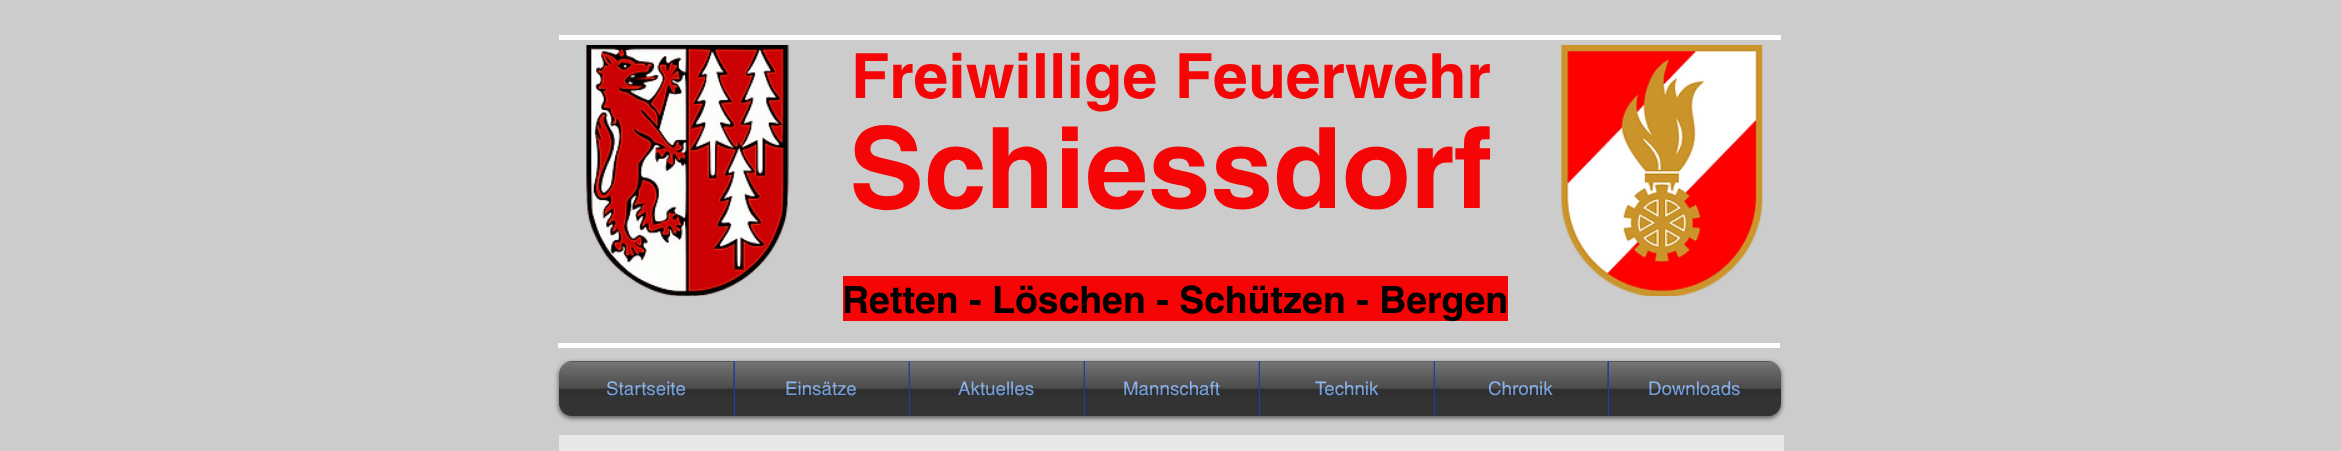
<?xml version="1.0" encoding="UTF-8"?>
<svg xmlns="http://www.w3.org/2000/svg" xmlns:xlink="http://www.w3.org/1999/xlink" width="2341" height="451">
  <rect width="100%" height="100%" fill="#cccccc" />
  <rect x="559" y="35" width="1222" height="5" fill="#ffffff" />
  <image x="586" y="45" width="203" height="252" xlink:href="image1.png" />
  <image x="1561" y="45" width="202" height="252" xlink:href="image2.png" />
  <rect x="843" y="276" width="665" height="45" fill="#f50505" />
  <rect x="558" y="343" width="1222" height="5" fill="#ffffff" />
  <rect x="559" y="363" width="1222" height="55" rx="13" fill="#000000" fill-opacity="0.6" filter="blur(2.5px)" />
  <image x="559" y="361" width="1222" height="49" xlink:href="image3.png" />
  <path d="M 572 361 h 162 v 55 h -162 c -7 0 -13 -6 -13 -13 v -29 c 0 -7 6 -13 13 -13 z" fill="#333333" />
  <rect x="735" y="361" width="174" height="55" fill="#333333" />
  <rect x="734" y="361" width="1" height="55" fill="#1a3dbc" />
  <rect x="910" y="361" width="174" height="55" fill="#333333" />
  <rect x="909" y="361" width="1" height="55" fill="#1a3dbc" />
  <rect x="1085" y="361" width="174" height="55" fill="#333333" />
  <rect x="1084" y="361" width="1" height="55" fill="#1a3dbc" />
  <rect x="1260" y="361" width="174" height="55" fill="#333333" />
  <rect x="1259" y="361" width="1" height="55" fill="#1a3dbc" />
  <rect x="1435" y="361" width="173" height="55" fill="#333333" />
  <rect x="1434" y="361" width="1" height="55" fill="#1a3dbc" />
  <path d="M 1608 361 h 160 c 7 0 13 6 13 13 v 29 c 0 7 -6 13 -13 13 h -160 z" fill="#333333" />
  <rect x="1608" y="361" width="1" height="55" fill="#1a3dbc" />
  <rect x="559" y="435" width="1225" height="16" fill="#e8e8e8" />
  <text x="851" y="98" style="font-family: helvetica; font-size: 62.5px; font-weight: bold; fill: #f50505">Freiwillige Feuerwehr</text>
  <text x="849" y="208" style="font-family: helvetica; font-size: 112.5px; font-weight: bold; fill: #f50505">Schiessdorf</text>
  <text x="842" y="313" style="font-family: helvetica; font-size: 37.5px; font-weight: bold; fill: #000000">Retten - Löschen - Schützen - Bergen</text>
  <text x="606" y="395" style="font-family: helvetica; font-size: 18.75px; fill: #7aa9ea">Startseite</text>
  <image x="559" y="361" width="175" height="35" xlink:href="image4.png" />
  <text x="785" y="395" style="font-family: helvetica; font-size: 18.75px; fill: #7aa9ea">Einsätze</text>
  <image x="735" y="361" width="174" height="35" xlink:href="image5.png" />
  <text x="958" y="395" style="font-family: helvetica; font-size: 18.75px; fill: #7aa9ea">Aktuelles</text>
  <image x="910" y="361" width="174" height="35" xlink:href="image6.png" />
  <text x="1123" y="395" style="font-family: helvetica; font-size: 18.75px; fill: #7aa9ea">Mannschaft</text>
  <image x="1085" y="361" width="174" height="35" xlink:href="image7.png" />
  <text x="1315" y="395" style="font-family: helvetica; font-size: 18.75px; fill: #7aa9ea">Technik</text>
  <image x="1260" y="361" width="174" height="35" xlink:href="image8.png" />
  <text x="1488" y="395" style="font-family: helvetica; font-size: 18.75px; fill: #7aa9ea">Chronik</text>
  <image x="1435" y="361" width="173" height="35" xlink:href="image9.png" />
  <text x="1648" y="395" style="font-family: helvetica; font-size: 18.75px; fill: #7aa9ea">Downloads</text>
  <image x="1609" y="361" width="172" height="35" xlink:href="image10.png" />
</svg>
